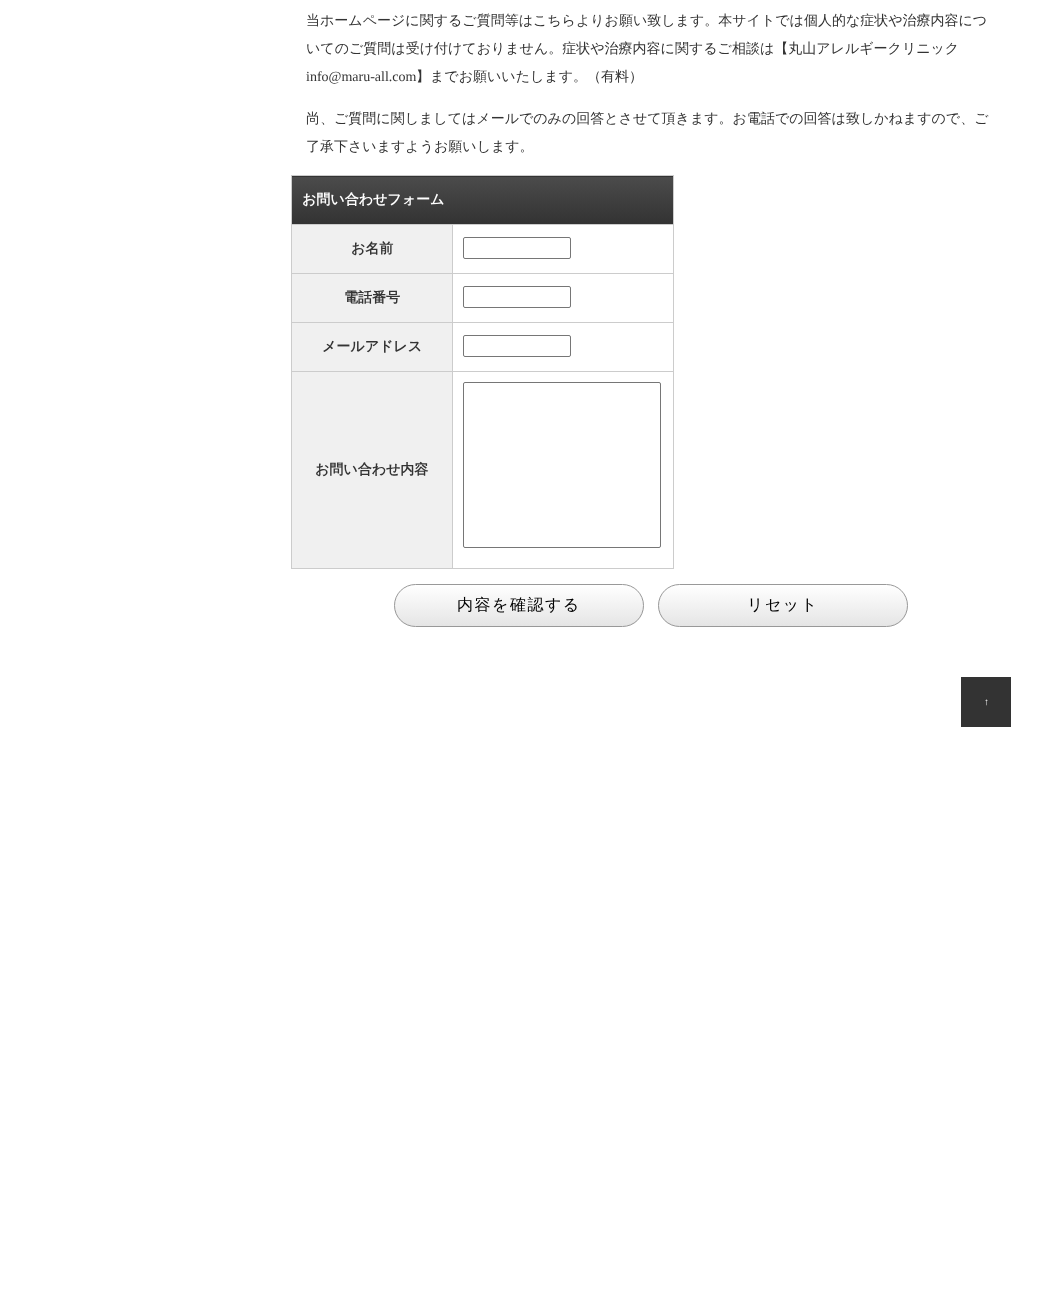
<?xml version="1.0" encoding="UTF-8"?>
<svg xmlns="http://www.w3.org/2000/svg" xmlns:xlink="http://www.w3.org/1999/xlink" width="1040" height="1301">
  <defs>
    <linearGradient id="g1" gradientUnits="userSpaceOnUse" x1="483" y1="130" x2="483" y2="177"><stop offset="0" stop-color="#4b4b4b" /><stop offset="1" stop-color="#333333" /></linearGradient>
    <linearGradient id="g2" gradientUnits="userSpaceOnUse" x1="483" y1="177" x2="483" y2="224"><stop offset="0" stop-color="#4b4b4b" /><stop offset="1" stop-color="#333333" /></linearGradient>
    <clipPath id="clip1"><rect x="394" y="584" width="250" height="43" rx="21.5" /></clipPath>
    <linearGradient id="g3" gradientUnits="userSpaceOnUse" x1="519" y1="585" x2="519" y2="626"><stop offset="0" stop-color="#ffffff" /><stop offset="1" stop-color="#e5e5e5" /></linearGradient>
    <clipPath id="clip2"><rect x="658" y="584" width="250" height="43" rx="21.5" /></clipPath>
    <linearGradient id="g4" gradientUnits="userSpaceOnUse" x1="783" y1="585" x2="783" y2="626"><stop offset="0" stop-color="#ffffff" /><stop offset="1" stop-color="#e5e5e5" /></linearGradient>
  </defs>
  <rect width="100%" height="100%" fill="#ffffff" />
  <rect x="291" y="175" width="383" height="1" fill="#cccccc" />
  <rect x="292" y="176" width="382" height="1" fill="url(#g1)" />
  <rect x="673" y="175" width="1" height="394" fill="#cccccc" />
  <rect x="291" y="568" width="383" height="1" fill="#cccccc" />
  <rect x="291" y="175" width="1" height="394" fill="#cccccc" />
  <rect x="292" y="177" width="381" height="47" fill="url(#g2)" />
  <rect x="292" y="225" width="160" height="48" fill="#f0f0f0" />
  <rect x="452" y="224" width="222" height="1" fill="#cccccc" />
  <rect x="452" y="273" width="222" height="1" fill="#cccccc" />
  <rect x="452" y="322" width="222" height="1" fill="#cccccc" />
  <rect x="452" y="371" width="222" height="1" fill="#cccccc" />
  <rect x="452" y="371" width="1" height="198" fill="#cccccc" />
  <rect x="291" y="371" width="162" height="1" fill="#cccccc" />
  <rect x="452" y="322" width="1" height="50" fill="#cccccc" />
  <rect x="291" y="322" width="162" height="1" fill="#cccccc" />
  <rect x="452" y="273" width="1" height="50" fill="#cccccc" />
  <rect x="291" y="273" width="162" height="1" fill="#cccccc" />
  <rect x="452" y="224" width="1" height="50" fill="#cccccc" />
  <rect x="291" y="224" width="162" height="1" fill="#cccccc" />
  <rect x="463.5" y="237.5" width="107" height="21" rx="1.5" fill="none" stroke="#767676" />
  <rect x="292" y="274" width="160" height="48" fill="#f0f0f0" />
  <rect x="463.5" y="286.5" width="107" height="21" rx="1.5" fill="none" stroke="#767676" />
  <rect x="292" y="323" width="160" height="48" fill="#f0f0f0" />
  <rect x="463.5" y="335.5" width="107" height="21" rx="1.5" fill="none" stroke="#767676" />
  <rect x="292" y="372" width="160" height="196" fill="#f0f0f0" />
  <rect x="463.5" y="382.5" width="197" height="165" rx="1.5" fill="none" stroke="#767676" />
  <g clip-path="url(#clip1)">
    <rect x="394" y="585" width="250" height="41" fill="url(#g3)" />
  </g>
  <rect x="394.5" y="584.5" width="249" height="42" rx="21" fill="none" stroke="#999999" />
  <g clip-path="url(#clip2)">
    <rect x="658" y="585" width="250" height="41" fill="url(#g4)" />
  </g>
  <rect x="658.5" y="584.5" width="249" height="42" rx="21" fill="none" stroke="#999999" />
  <rect x="961" y="677" width="50" height="50" fill="#333333" />
  <text x="306" y="25" style="font-family: WenQuanYi Zen Hei; font-size: 14px; font-weight: 500; fill: #333333">当ホームページに関するご質問等はこちらよりお願い致します。本サイトでは個人的な症状や治療内容につ</text>
  <text x="306" y="53" style="font-family: WenQuanYi Zen Hei; font-size: 14px; font-weight: 500; fill: #333333">いてのご質問は受け付けておりません。症状や治療内容に関するご相談は【丸山アレルギークリニック</text>
  <text x="306" y="81" style="font-family: Liberation Serif; font-size: 14px; fill: #333333">info@maru-all.com</text>
  <text x="416" y="81" style="font-family: WenQuanYi Zen Hei; font-size: 14px; font-weight: 500; fill: #333333">】までお願いいたします。（有料）</text>
  <text x="306" y="123" style="font-family: WenQuanYi Zen Hei; font-size: 14px; font-weight: 500; fill: #333333">尚、ご質問に関しましてはメールでのみの回答とさせて頂きます。お電話での回答は致しかねますので、ご</text>
  <text x="306" y="151" style="font-family: WenQuanYi Zen Hei; font-size: 14px; font-weight: 500; fill: #333333">了承下さいますようお願いします。</text>
  <text x="302" y="204" style="font-family: WenQuanYi Zen Hei; font-size: 14px; font-weight: bold; fill: #ffffff">お問い合わせフォーム</text>
  <text x="351" y="253" style="font-family: WenQuanYi Zen Hei; font-size: 14px; font-weight: bold; fill: #333333">お名前</text>
  <text x="344" y="302" style="font-family: WenQuanYi Zen Hei; font-size: 14px; font-weight: bold; fill: #333333">電話番号</text>
  <text x="322" y="351" style="font-family: WenQuanYi Zen Hei; font-size: 14px; font-weight: bold; fill: #333333">メールアドレス</text>
  <text x="315" y="474" style="font-family: WenQuanYi Zen Hei; font-size: 14px; font-weight: bold; fill: #333333">お問い合わせ内容</text>
  <text x="457" y="610" style="font-family: WenQuanYi Zen Hei; font-size: 16px; font-weight: 500; letter-spacing: 1.5px; fill: #000000">内容を確認する</text>
  <text x="747" y="610" style="font-family: WenQuanYi Zen Hei; font-size: 16px; font-weight: 500; letter-spacing: 1.5px; fill: #000000">リセット</text>
  <text x="984" y="705" style="font-family: Liberation Serif; font-size: 10px; fill: #ffffff">↑</text>
</svg>
